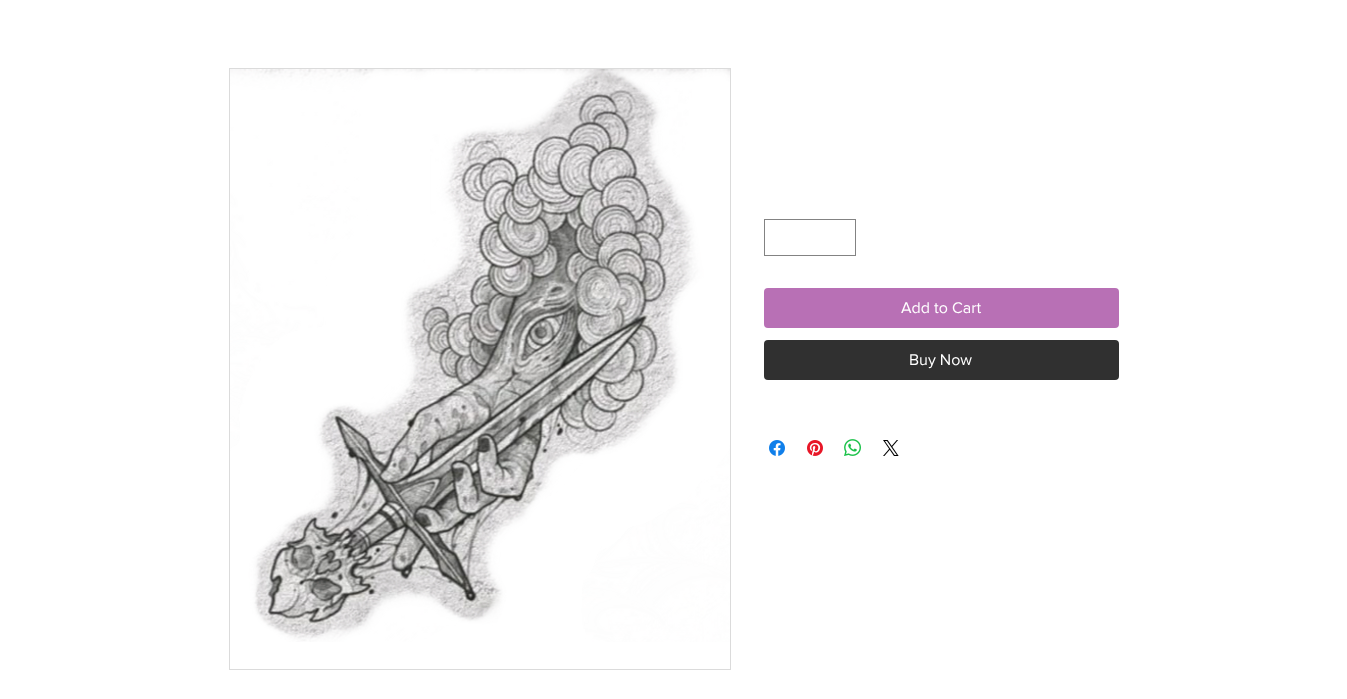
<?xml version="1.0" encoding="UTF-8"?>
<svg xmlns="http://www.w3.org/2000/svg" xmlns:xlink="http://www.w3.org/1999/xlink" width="1347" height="699">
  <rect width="100%" height="100%" fill="#ffffff" />
  <rect x="229.5" y="68.5" width="501" height="601" fill="none" stroke="#dbdbdb" />
  <image x="230" y="69" width="500" height="573" xlink:href="image1.png" />
  <rect x="764.5" y="219.5" width="91" height="36" fill="none" stroke="#838383" />
  <rect x="764" y="288" width="355" height="40" rx="4" fill="#b870b5" />
  <rect x="764" y="340" width="355" height="40" rx="4" fill="#303030" />
  <image x="769" y="440" width="16" height="16" xlink:href="image2.png" />
  <image x="807" y="440" width="16" height="16" xlink:href="image3.png" />
  <image x="844" y="439" width="17" height="17" xlink:href="image4.png" />
  <image x="883" y="440" width="16" height="16" xlink:href="image5.png" />
  <text x="901" y="313" style="font-family: 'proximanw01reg'; font-size: 16px; fill: #ffffff">Add to Cart</text>
  <text x="909" y="365" style="font-family: 'proximanw01reg'; font-size: 16px; fill: #ffffff">Buy Now</text>
</svg>
